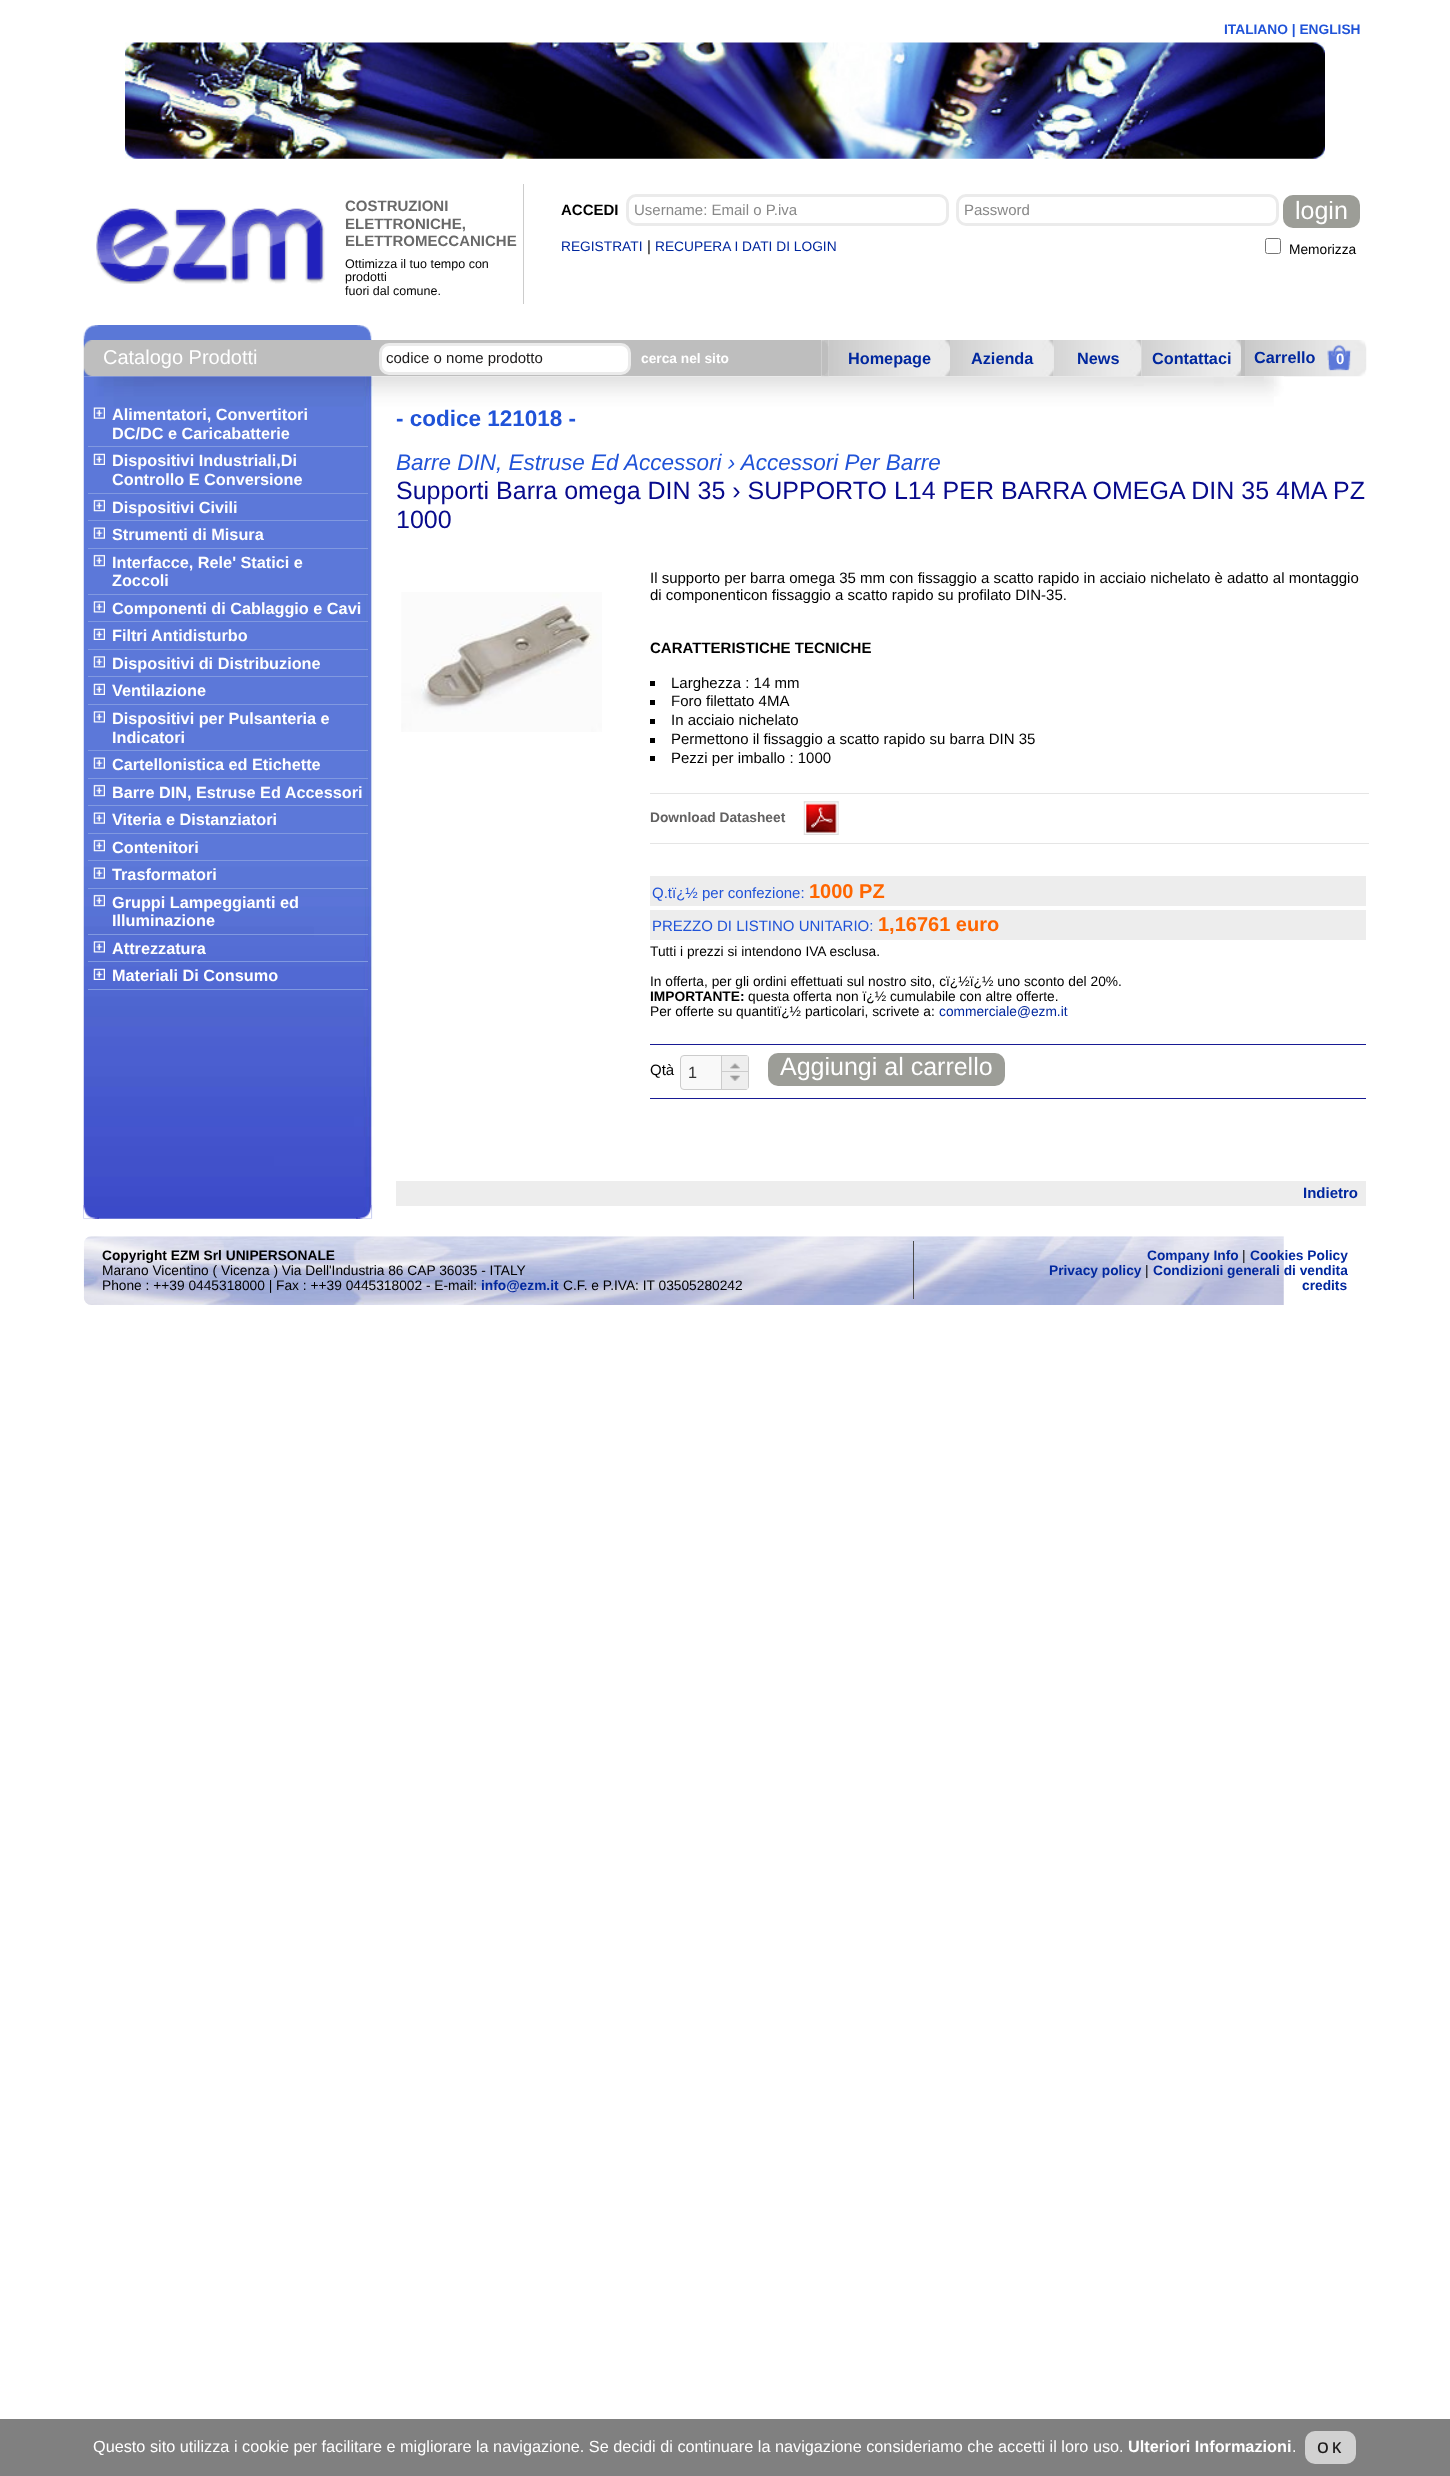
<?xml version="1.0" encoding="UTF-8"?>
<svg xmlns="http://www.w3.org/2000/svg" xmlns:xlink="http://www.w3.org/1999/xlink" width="1450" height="2476">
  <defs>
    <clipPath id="clip1"><rect x="680" y="1055" width="69" height="35" rx="4" /></clipPath>
  </defs>
  <rect width="100%" height="100%" fill="#ffffff" />
  <image x="125" y="42" width="1200" height="117" xlink:href="image1.png" />
  <image x="96" y="208" width="229" height="76" xlink:href="image2.png" />
  <rect x="523" y="184" width="1" height="120" fill="#cccccc" />
  <rect x="627.5" y="195.5" width="320" height="29" rx="8.5" fill="none" stroke="#ebebeb" stroke-width="3" />
  <rect x="957.5" y="195.5" width="320" height="29" rx="8.5" fill="none" stroke="#ebebeb" stroke-width="3" />
  <rect x="1283" y="195" width="77" height="33" rx="10" fill="#9c9d97" />
  <rect x="1265.5" y="238.5" width="15" height="15" rx="2" fill="none" stroke="#767676" />
  <image x="83" y="325" width="289" height="15" xlink:href="image3.png" />
  <rect x="91" y="340" width="730" height="36" fill="#bebebe" />
  <image x="828" y="340" width="122" height="37" xlink:href="image6.png" />
  <image x="950" y="340" width="104" height="37" xlink:href="image7.png" />
  <image x="1053" y="340" width="89" height="37" xlink:href="image8.png" />
  <image x="1141" y="340" width="101" height="37" xlink:href="image9.png" />
  <image x="1245" y="340" width="122" height="37" xlink:href="image10.png" />
  <image x="83" y="376" width="1201" height="843" xlink:href="image12.png" />
  <image x="83" y="340" width="9" height="37" xlink:href="image4.png" />
  <rect x="380.5" y="344.5" width="249" height="29" rx="8.5" fill="#ffffff" stroke="#ebebeb" stroke-width="3" />
  <image x="821" y="340" width="8" height="37" xlink:href="image5.png" />
  <rect x="1241" y="340" width="4" height="36" fill="#bebebe" />
  <image x="1327" y="344" width="25" height="27" xlink:href="image11.png" />
  <image x="93" y="407" width="12" height="12" xlink:href="image13.png" />
  <rect x="88" y="446" width="280" height="1" fill="#8199e0" />
  <image x="93" y="453" width="12" height="12" xlink:href="image14.png" />
  <rect x="88" y="493" width="280" height="1" fill="#8199e0" />
  <image x="93" y="499" width="12" height="13" xlink:href="image15.png" />
  <rect x="88" y="520" width="280" height="1" fill="#8199e0" />
  <image x="93" y="527" width="12" height="12" xlink:href="image13.png" />
  <rect x="88" y="548" width="280" height="1" fill="#8199e0" />
  <image x="93" y="554" width="12" height="13" xlink:href="image15.png" />
  <rect x="88" y="594" width="280" height="1" fill="#8199e0" />
  <image x="93" y="601" width="12" height="12" xlink:href="image16.png" />
  <rect x="88" y="621" width="280" height="1" fill="#8199e0" />
  <image x="93" y="628" width="12" height="12" xlink:href="image14.png" />
  <rect x="88" y="649" width="280" height="1" fill="#8199e0" />
  <image x="93" y="656" width="12" height="12" xlink:href="image16.png" />
  <rect x="88" y="676" width="280" height="1" fill="#8199e0" />
  <image x="93" y="683" width="12" height="12" xlink:href="image14.png" />
  <rect x="88" y="704" width="280" height="1" fill="#8199e0" />
  <image x="93" y="711" width="12" height="12" xlink:href="image16.png" />
  <rect x="88" y="750" width="280" height="1" fill="#8199e0" />
  <image x="93" y="757" width="12" height="12" xlink:href="image13.png" />
  <rect x="88" y="778" width="280" height="1" fill="#8199e0" />
  <image x="93" y="784" width="12" height="13" xlink:href="image17.png" />
  <rect x="88" y="805" width="280" height="1" fill="#8199e0" />
  <image x="93" y="812" width="12" height="12" xlink:href="image13.png" />
  <rect x="88" y="833" width="280" height="1" fill="#8199e0" />
  <image x="93" y="839" width="12" height="13" xlink:href="image15.png" />
  <rect x="88" y="860" width="280" height="1" fill="#8199e0" />
  <image x="93" y="867" width="12" height="12" xlink:href="image18.png" />
  <rect x="88" y="888" width="280" height="1" fill="#8199e0" />
  <image x="93" y="894" width="12" height="13" xlink:href="image19.png" />
  <rect x="88" y="934" width="280" height="1" fill="#8199e0" />
  <image x="93" y="941" width="12" height="12" xlink:href="image20.png" />
  <rect x="88" y="961" width="280" height="1" fill="#8199e0" />
  <image x="93" y="968" width="12" height="12" xlink:href="image21.png" />
  <rect x="88" y="989" width="280" height="1" fill="#8199e0" />
  <image x="401" y="592" width="201" height="140" xlink:href="image22.png" />
  <rect x="650" y="681" width="5" height="5" fill="#000000" />
  <rect x="650" y="700" width="5" height="5" fill="#000000" />
  <rect x="650" y="719" width="5" height="5" fill="#000000" />
  <rect x="650" y="738" width="5" height="5" fill="#000000" />
  <rect x="650" y="756" width="5" height="5" fill="#000000" />
  <rect x="650" y="793" width="719" height="1" fill="#e5e5e5" />
  <image x="803" y="801" width="36" height="34" xlink:href="image23.png" />
  <rect x="650" y="843" width="719" height="1" fill="#e5e5e5" />
  <rect x="650" y="876" width="716" height="30" fill="#ededed" />
  <rect x="650" y="910" width="716" height="30" fill="#ededed" />
  <rect x="650" y="1044" width="716" height="1" fill="#181a94" />
  <rect x="680.5" y="1055.5" width="68" height="34" rx="3.5" fill="#f9f9f9" stroke="#cccccc" />
  <path d="M 721 1055 h 24 c 2 0 4 2 4 4 v 12 h -28 z" fill="#eeeeee" />
  <image x="730" y="1063" width="10" height="6" xlink:href="image24.png" />
  <g clip-path="url(#clip1)">
    <rect x="721" y="1055" width="28" height="1" fill="#cccccc" />
    <rect x="748" y="1055" width="1" height="16" fill="#cccccc" />
  </g>
  <rect x="721" y="1055" width="1" height="16" fill="#cccccc" />
  <path d="M 721 1071 h 28 v 15 c 0 2 -2 4 -4 4 h -24 z" fill="#eeeeee" />
  <image x="730" y="1075" width="10" height="6" xlink:href="image25.png" />
  <path d="M 721 1071 v 19 h 24 c 1 0 2 -0.5 2.5 -1 h -25.5 v -17 h 26 v 16.5 c 0.5 -0.5 1 -1.5 1 -2.5 v -15 z" fill="#cccccc" />
  <rect x="768" y="1053" width="237" height="33" rx="10" fill="#9c9d97" />
  <rect x="650" y="1098" width="716" height="1" fill="#181a94" />
  <rect x="396" y="1181" width="970" height="25" fill="#ededed" />
  <image x="83" y="1205" width="289" height="14" xlink:href="image26.png" />
  <image x="83" y="1236" width="1201" height="69" xlink:href="image27.png" />
  <rect x="913" y="1241" width="1" height="58" fill="#494949" />
  <rect y="2419" width="1450" height="57" fill="#808080" />
  <rect x="1305" y="2431" width="51" height="33" rx="10" fill="#d1d1d1" />
  <text x="1224" y="34" style="font-family: Liberation Sans; font-size: 13.75px; font-weight: bold; fill: #2053d8">ITALIANO | ENGLISH</text>
  <text x="345" y="211" style="font-family: Liberation Sans; font-size: 15px; font-weight: bold; fill: #696969">COSTRUZIONI</text>
  <text x="345" y="229" style="font-family: Liberation Sans; font-size: 15px; font-weight: bold; fill: #696969">ELETTRONICHE,</text>
  <text x="345" y="246" style="font-family: Liberation Sans; font-size: 15px; font-weight: bold; fill: #696969">ELETTROMECCANICHE</text>
  <text x="345" y="268" style="font-family: Liberation Sans; font-size: 12.5px; fill: #000000">Ottimizza il tuo tempo con</text>
  <text x="345" y="281" style="font-family: Liberation Sans; font-size: 12.5px; fill: #000000">prodotti</text>
  <text x="345" y="295" style="font-family: Liberation Sans; font-size: 12.5px; fill: #000000">fuori dal comune.</text>
  <text x="561" y="215" style="font-family: Liberation Sans; font-size: 15px; font-weight: bold; fill: #000000">ACCEDI</text>
  <text x="634" y="215" style="font-family: Liberation Sans; font-size: 15px; fill: #888888">Username: Email o P.iva</text>
  <text x="964" y="215" style="font-family: Liberation Sans; font-size: 15px; fill: #888888">Password</text>
  <text x="1295" y="219" style="font-family: Liberation Sans; font-size: 25px; fill: #ffffff">login</text>
  <text x="561" y="251" style="font-family: Liberation Sans; font-size: 13.75px; fill: #00279e">REGISTRATI</text>
  <text x="647" y="251" style="font-family: Liberation Sans; font-size: 15px; fill: #000000">|</text>
  <text x="655" y="251" style="font-family: Liberation Sans; font-size: 13.75px; fill: #00279e">RECUPERA I DATI DI LOGIN</text>
  <text x="1289" y="254" style="font-family: Liberation Sans; font-size: 13.75px; fill: #000000">Memorizza</text>
  <text x="103" y="364" style="font-family: Liberation Sans; font-size: 20px; fill: #ffffff">Catalogo Prodotti</text>
  <text x="386" y="363" style="font-family: Liberation Sans; font-size: 15px; fill: #1c1a1a">codice o nome prodotto</text>
  <text x="641" y="363" style="font-family: Liberation Sans; font-size: 13.75px; font-weight: bold; fill: #ffffff">cerca nel sito</text>
  <text x="848" y="364" style="font-family: Liberation Sans; font-size: 16.25px; font-weight: bold; fill: #00279e">Homepage</text>
  <text x="971" y="364" style="font-family: Liberation Sans; font-size: 16.25px; font-weight: bold; fill: #00279e">Azienda</text>
  <text x="1077" y="364" style="font-family: Liberation Sans; font-size: 16.25px; font-weight: bold; fill: #00279e">News</text>
  <text x="1152" y="364" style="font-family: Liberation Sans; font-size: 16.25px; font-weight: bold; fill: #00279e">Contattaci</text>
  <text x="1254" y="363" style="font-family: Liberation Sans; font-size: 16.25px; font-weight: bold; fill: #00279e">Carrello</text>
  <text x="1336" y="364" style="font-family: Liberation Sans; font-size: 15px; font-weight: bold; fill: #ffffff">0</text>
  <text x="112" y="420" style="font-family: Liberation Sans; font-size: 16.25px; font-weight: bold; fill: #ffffff">Alimentatori, Convertitori</text>
  <text x="112" y="439" style="font-family: Liberation Sans; font-size: 16.25px; font-weight: bold; fill: #ffffff">DC/DC e Caricabatterie</text>
  <text x="112" y="466" style="font-family: Liberation Sans; font-size: 16.25px; font-weight: bold; fill: #ffffff">Dispositivi Industriali,Di</text>
  <text x="112" y="485" style="font-family: Liberation Sans; font-size: 16.25px; font-weight: bold; fill: #ffffff">Controllo E Conversione</text>
  <text x="112" y="513" style="font-family: Liberation Sans; font-size: 16.25px; font-weight: bold; fill: #ffffff">Dispositivi Civili</text>
  <text x="112" y="540" style="font-family: Liberation Sans; font-size: 16.25px; font-weight: bold; fill: #ffffff">Strumenti di Misura</text>
  <text x="112" y="568" style="font-family: Liberation Sans; font-size: 16.25px; font-weight: bold; fill: #ffffff">Interfacce, Rele' Statici e</text>
  <text x="112" y="586" style="font-family: Liberation Sans; font-size: 16.25px; font-weight: bold; fill: #ffffff">Zoccoli</text>
  <text x="112" y="614" style="font-family: Liberation Sans; font-size: 16.25px; font-weight: bold; fill: #ffffff">Componenti di Cablaggio e Cavi</text>
  <text x="112" y="641" style="font-family: Liberation Sans; font-size: 16.25px; font-weight: bold; fill: #ffffff">Filtri Antidisturbo</text>
  <text x="112" y="669" style="font-family: Liberation Sans; font-size: 16.25px; font-weight: bold; fill: #ffffff">Dispositivi di Distribuzione</text>
  <text x="112" y="696" style="font-family: Liberation Sans; font-size: 16.25px; font-weight: bold; fill: #ffffff">Ventilazione</text>
  <text x="112" y="724" style="font-family: Liberation Sans; font-size: 16.25px; font-weight: bold; fill: #ffffff">Dispositivi per Pulsanteria e</text>
  <text x="112" y="743" style="font-family: Liberation Sans; font-size: 16.25px; font-weight: bold; fill: #ffffff">Indicatori</text>
  <text x="112" y="770" style="font-family: Liberation Sans; font-size: 16.25px; font-weight: bold; fill: #ffffff">Cartellonistica ed Etichette</text>
  <text x="112" y="798" style="font-family: Liberation Sans; font-size: 16.25px; font-weight: bold; fill: #ffffff">Barre DIN, Estruse Ed Accessori</text>
  <text x="112" y="825" style="font-family: Liberation Sans; font-size: 16.25px; font-weight: bold; fill: #ffffff">Viteria e Distanziatori</text>
  <text x="112" y="853" style="font-family: Liberation Sans; font-size: 16.25px; font-weight: bold; fill: #ffffff">Contenitori</text>
  <text x="112" y="880" style="font-family: Liberation Sans; font-size: 16.25px; font-weight: bold; fill: #ffffff">Trasformatori</text>
  <text x="112" y="908" style="font-family: Liberation Sans; font-size: 16.25px; font-weight: bold; fill: #ffffff">Gruppi Lampeggianti ed</text>
  <text x="112" y="926" style="font-family: Liberation Sans; font-size: 16.25px; font-weight: bold; fill: #ffffff">Illuminazione</text>
  <text x="112" y="954" style="font-family: Liberation Sans; font-size: 16.25px; font-weight: bold; fill: #ffffff">Attrezzatura</text>
  <text x="112" y="981" style="font-family: Liberation Sans; font-size: 16.25px; font-weight: bold; fill: #ffffff">Materiali Di Consumo</text>
  <text x="396" y="426" style="font-family: Liberation Sans; font-size: 22.5px; font-weight: bold; fill: #2053d8">- codice 121018 -</text>
  <text x="396" y="470" style="font-family: Liberation Sans; font-size: 22.5px; font-style: italic; fill: #2053d8">Barre DIN, Estruse Ed Accessori › Accessori Per Barre</text>
  <text x="396" y="499" style="font-family: Liberation Sans; font-size: 25px; fill: #070a8c">Supporti Barra omega DIN 35 › SUPPORTO L14 PER BARRA OMEGA DIN 35 4MA PZ</text>
  <text x="396" y="528" style="font-family: Liberation Sans; font-size: 25px; fill: #070a8c">1000</text>
  <text x="650" y="583" style="font-family: Liberation Sans; font-size: 15px; fill: #000000">Il supporto per barra omega 35 mm con fissaggio a scatto rapido in acciaio nichelato è adatto al montaggio</text>
  <text x="650" y="600" style="font-family: Liberation Sans; font-size: 15px; fill: #000000">di componenticon fissaggio a scatto rapido su profilato DIN-35.</text>
  <text x="650" y="653" style="font-family: Liberation Sans; font-size: 15px; font-weight: bold; fill: #000000">CARATTERISTICHE TECNICHE</text>
  <text x="671" y="688" style="font-family: Liberation Sans; font-size: 15px; fill: #000000">Larghezza : 14 mm</text>
  <text x="671" y="706" style="font-family: Liberation Sans; font-size: 15px; fill: #000000">Foro filettato 4MA</text>
  <text x="671" y="725" style="font-family: Liberation Sans; font-size: 15px; fill: #000000">In acciaio nichelato</text>
  <text x="671" y="744" style="font-family: Liberation Sans; font-size: 15px; fill: #000000">Permettono il fissaggio a scatto rapido su barra DIN 35</text>
  <text x="671" y="763" style="font-family: Liberation Sans; font-size: 15px; fill: #000000">Pezzi per imballo : 1000</text>
  <text x="650" y="822" style="font-family: Liberation Sans; font-size: 13.75px; font-weight: bold; fill: #626161">Download Datasheet</text>
  <text x="652" y="898" style="font-family: Liberation Sans; font-size: 15px; fill: #2053d8">Q.tï¿½ per confezione:</text>
  <text x="809" y="898" style="font-family: Liberation Sans; font-size: 20px; font-weight: bold; fill: #ff6600">1000 PZ</text>
  <text x="652" y="931" style="font-family: Liberation Sans; font-size: 15px; fill: #2053d8">PREZZO DI LISTINO UNITARIO:</text>
  <text x="878" y="931" style="font-family: Liberation Sans; font-size: 20px; font-weight: bold; fill: #ff6600">1,16761 euro</text>
  <text x="650" y="956" style="font-family: Liberation Sans; font-size: 13.75px; fill: #000000">Tutti i prezzi si intendono IVA esclusa.</text>
  <text x="650" y="986" style="font-family: Liberation Sans; font-size: 13.75px; fill: #000000">In offerta, per gli ordini effettuati sul nostro sito, cï¿½ï¿½ uno sconto del 20%.</text>
  <text x="650" y="1001" style="font-family: Liberation Sans; font-size: 13.75px; font-weight: bold; fill: #000000">IMPORTANTE:</text>
  <text x="748" y="1001" style="font-family: Liberation Sans; font-size: 13.75px; fill: #000000">questa offerta non ï¿½ cumulabile con altre offerte.</text>
  <text x="650" y="1016" style="font-family: Liberation Sans; font-size: 13.75px; fill: #000000">Per offerte su quantitï¿½ particolari, scrivete a:</text>
  <text x="939" y="1016" style="font-family: Liberation Sans; font-size: 13.75px; fill: #00279e">commerciale@ezm.it</text>
  <text x="650" y="1075" style="font-family: Liberation Sans; font-size: 15px; fill: #000000">Qtà</text>
  <text x="688" y="1078" style="font-family: Liberation Sans; font-size: 16.25px; fill: #333333">1</text>
  <text x="780" y="1075" style="font-family: Liberation Sans; font-size: 25px; fill: #ffffff">Aggiungi al carrello</text>
  <text x="1303" y="1198" style="font-family: Liberation Sans; font-size: 15px; font-weight: bold; fill: #00279e">Indietro</text>
  <text x="102" y="1260" style="font-family: Liberation Sans; font-size: 13.75px; font-weight: bold; fill: #000000">Copyright EZM Srl UNIPERSONALE</text>
  <text x="102" y="1275" style="font-family: Liberation Sans; font-size: 13.75px; fill: #000000">Marano Vicentino ( Vicenza ) Via Dell'Industria 86 CAP 36035 - ITALY</text>
  <text x="102" y="1290" style="font-family: Liberation Sans; font-size: 13.75px; fill: #000000">Phone : ++39 0445318000 | Fax : ++39 0445318002 - E-mail:</text>
  <text x="481" y="1290" style="font-family: Liberation Sans; font-size: 13.75px; font-weight: bold; fill: #00279e">info@ezm.it</text>
  <text x="563" y="1290" style="font-family: Liberation Sans; font-size: 13.75px; fill: #000000">C.F. e P.IVA: IT 03505280242</text>
  <text x="1147" y="1260" style="font-family: Liberation Sans; font-size: 13.75px; font-weight: bold; fill: #00279e">Company Info</text>
  <text x="1242" y="1260" style="font-family: Liberation Sans; font-size: 13.75px; fill: #000000">|</text>
  <text x="1250" y="1260" style="font-family: Liberation Sans; font-size: 13.75px; font-weight: bold; fill: #00279e">Cookies Policy</text>
  <text x="1049" y="1275" style="font-family: Liberation Sans; font-size: 13.75px; font-weight: bold; fill: #00279e">Privacy policy</text>
  <text x="1145" y="1275" style="font-family: Liberation Sans; font-size: 13.75px; fill: #000000">|</text>
  <text x="1153" y="1275" style="font-family: Liberation Sans; font-size: 13.75px; font-weight: bold; fill: #00279e">Condizioni generali di vendita</text>
  <text x="1302" y="1290" style="font-family: Liberation Sans; font-size: 13.75px; font-weight: bold; fill: #00279e">credits</text>
  <text x="93" y="2452" style="font-family: Liberation Sans; font-size: 16.25px; fill: #ffffff">Questo sito utilizza i cookie per facilitare e migliorare la navigazione. Se decidi di continuare la navigazione consideriamo che accetti il loro uso.</text>
  <text x="1128" y="2452" style="font-family: Liberation Sans; font-size: 16.25px; font-weight: bold; fill: #ffffff">Ulteriori Informazioni</text>
  <text x="1292" y="2452" style="font-family: Liberation Sans; font-size: 16.25px; fill: #ffffff">.</text>
  <text x="1317" y="2453" style="font-family: Open Sans; font-size: 15px; font-weight: 600; letter-spacing: 3px; fill: #1c1a1a">OK</text>
</svg>
